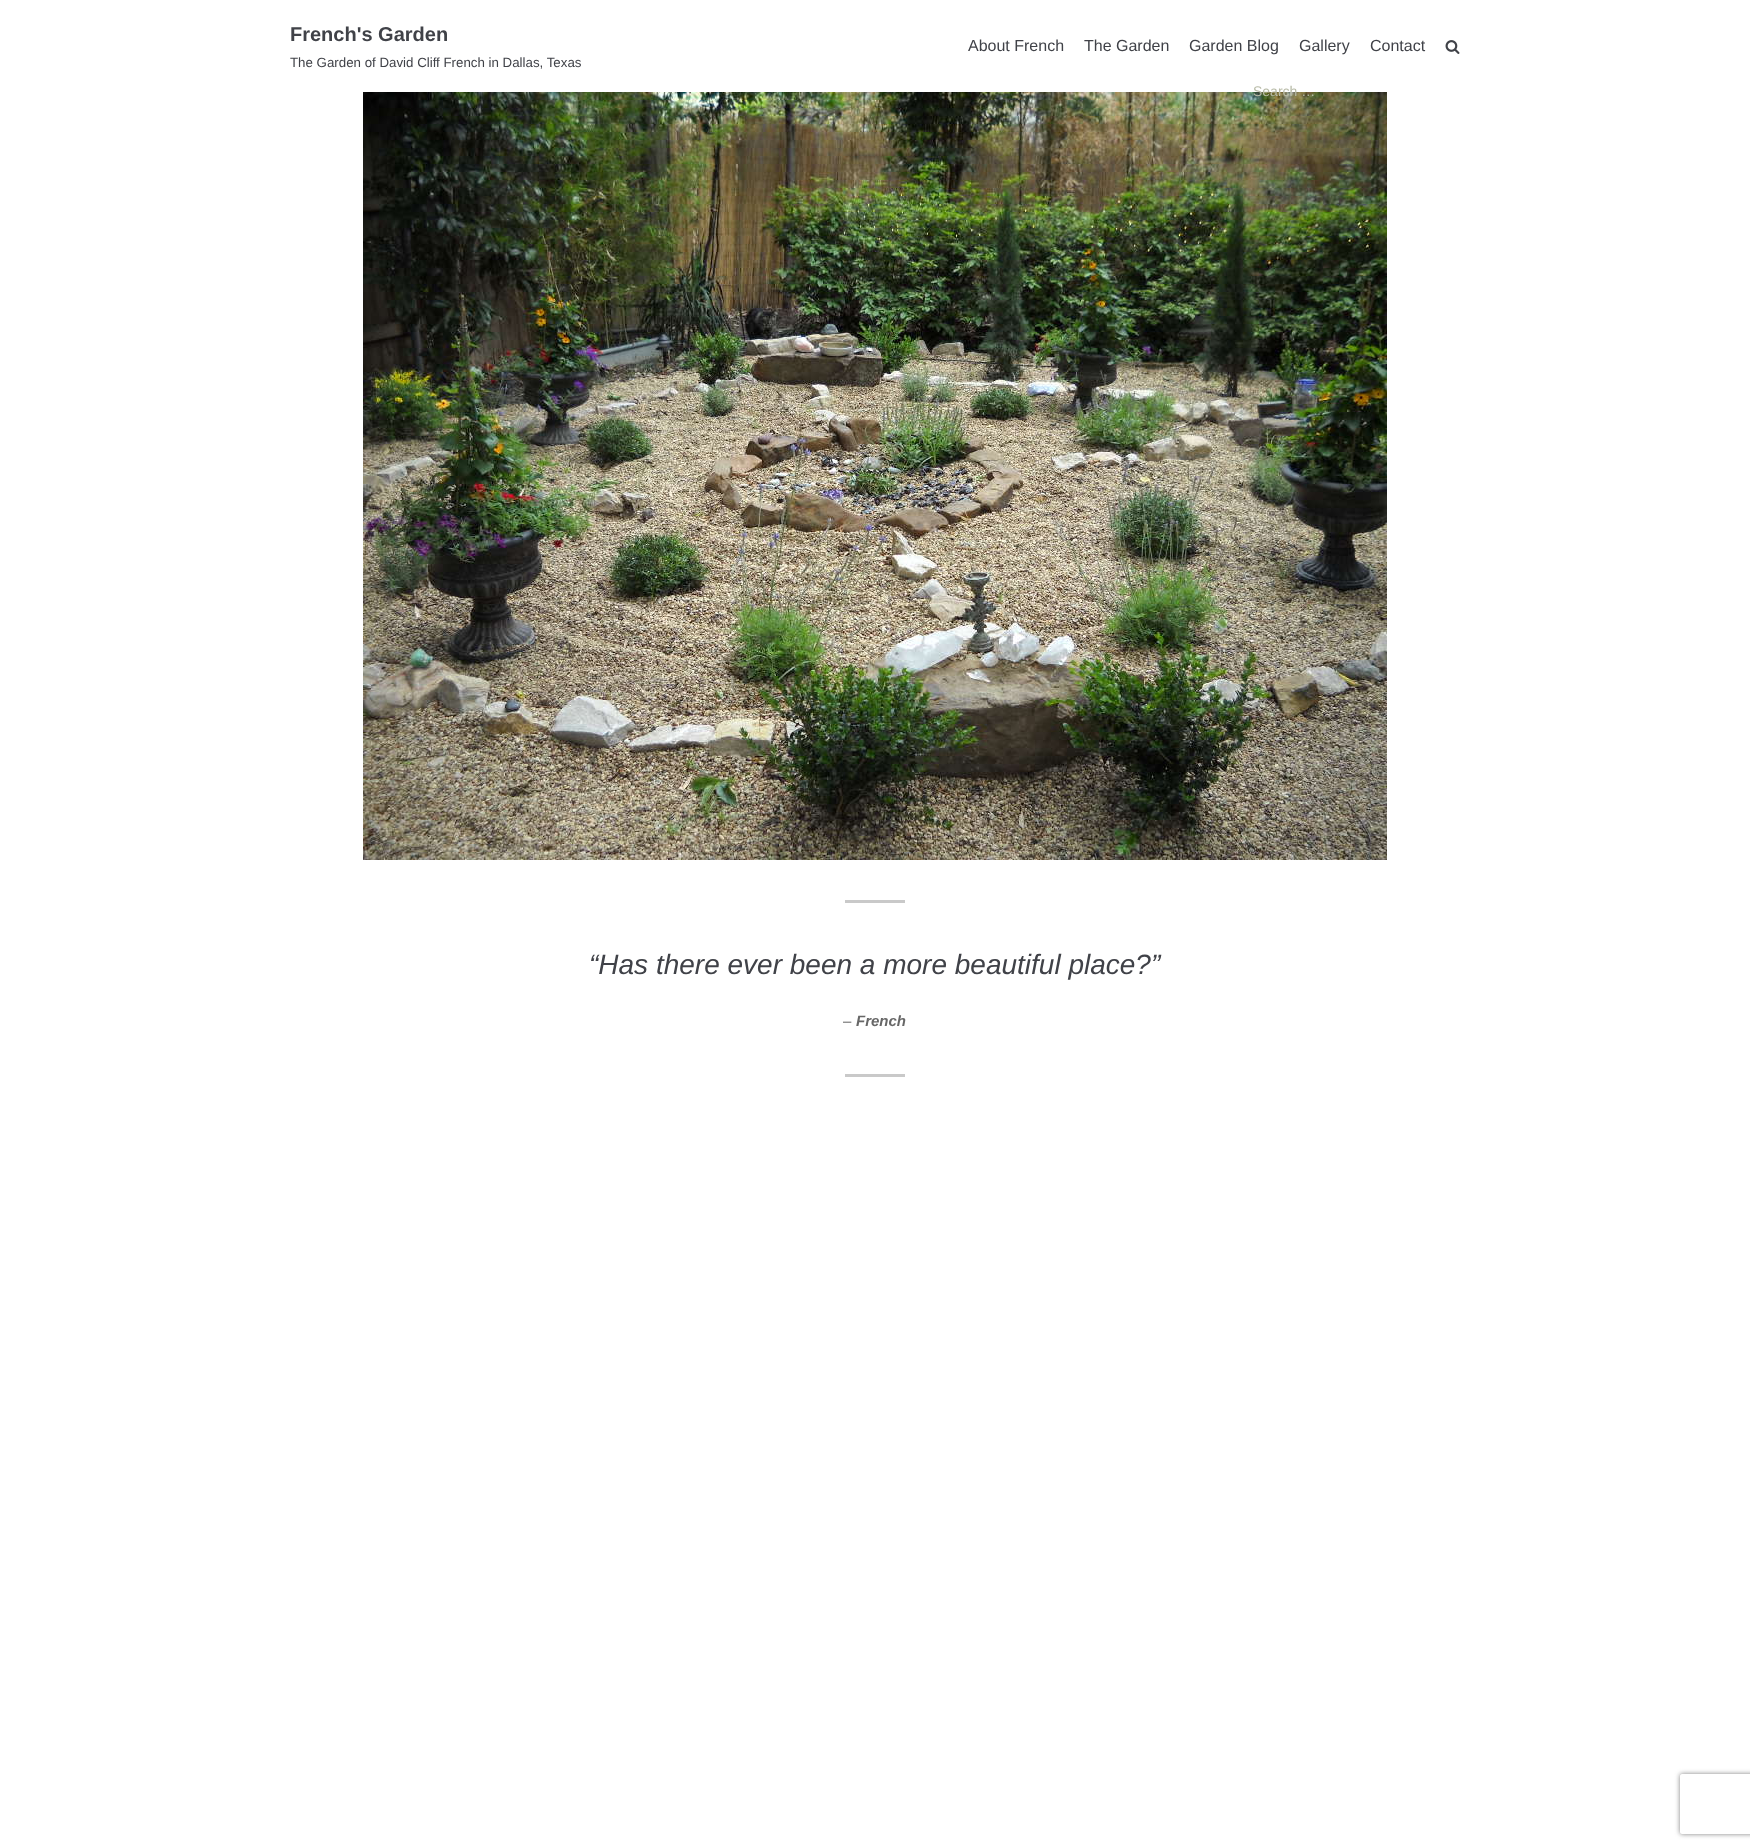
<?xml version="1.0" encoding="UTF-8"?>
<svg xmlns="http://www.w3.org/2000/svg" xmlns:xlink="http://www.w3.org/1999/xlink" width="1750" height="1848">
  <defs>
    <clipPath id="clip1"><path d="M 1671 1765 h 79 v 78 h -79 z m 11 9 h 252 c 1 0 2 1 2 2 v 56 c 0 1 -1 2 -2 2 h -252 c -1 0 -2 -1 -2 -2 v -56 c 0 -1 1 -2 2 -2 z" clip-rule="evenodd" /></clipPath>
  </defs>
  <rect width="100%" height="100%" fill="#ffffff" />
  <image x="1445" y="40" width="15" height="14" xlink:href="image1.png" />
  <image x="363" y="92" width="1024" height="768" xlink:href="image2.png" />
  <rect x="845" y="900" width="60" height="3" fill="#c9c9c9" />
  <rect x="845" y="1074" width="60" height="3" fill="#c9c9c9" />
  <g clip-path="url(#clip1)">
    <rect x="1680" y="1774" width="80" height="60" rx="2" fill="#808080" filter="blur(2.5px)" />
  </g>
  <text x="290" y="41" style="font-family: Liberation Sans; font-size: 20px; font-weight: bold; fill: #404248">French's Garden</text>
  <text x="290" y="67" style="font-family: Liberation Sans; font-size: 13.3px; fill: #404248">The Garden of David Cliff French in Dallas, Texas</text>
  <text x="968" y="51" style="font-family: Liberation Sans; font-size: 16px; fill: #404248">About French</text>
  <text x="1084" y="51" style="font-family: Liberation Sans; font-size: 16px; fill: #404248">The Garden</text>
  <text x="1189" y="51" style="font-family: Liberation Sans; font-size: 16px; fill: #404248">Garden Blog</text>
  <text x="1299" y="51" style="font-family: Liberation Sans; font-size: 16px; fill: #404248">Gallery</text>
  <text x="1370" y="51" style="font-family: Liberation Sans; font-size: 16px; fill: #404248">Contact</text>
  <text x="1253" y="96" style="font-family: Liberation Sans; font-size: 14px; fill: #b7baa6">Search …</text>
  <text x="589" y="974" style="font-family: Liberation Sans; font-size: 28px; font-style: italic; fill: #404248">“Has there ever been a more beautiful place?”</text>
  <text x="843" y="1026" style="font-family: Liberation Sans; font-size: 15px; fill: #676767">–</text>
  <text x="856" y="1026" style="font-family: Liberation Sans; font-size: 15px; font-weight: bold; font-style: italic; fill: #676767">French</text>
</svg>
